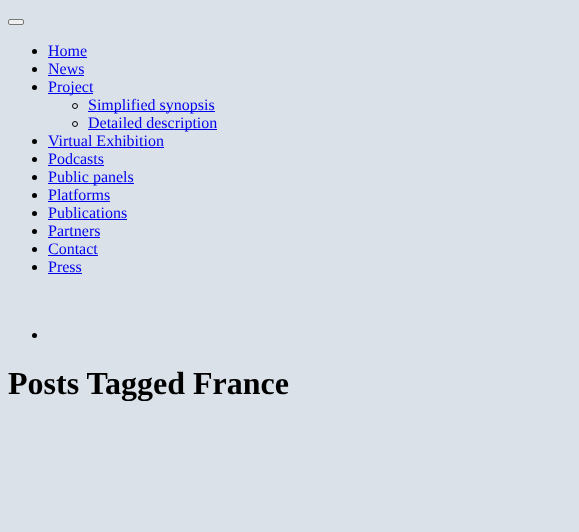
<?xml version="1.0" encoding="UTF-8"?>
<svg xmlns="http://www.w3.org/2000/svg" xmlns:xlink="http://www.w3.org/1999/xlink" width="579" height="532">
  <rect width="100%" height="100%" fill="#dae1e8" />
  <rect x="8.5" y="19.5" width="15" height="5" rx="1.5" fill="#efefef" stroke="#767676" />
  <circle cx="34.5" cy="51.5" r="2.5" fill="#000000" />
  <rect x="48" y="57" width="39" height="1" fill="#0000ee" />
  <circle cx="34.5" cy="69.5" r="2.5" fill="#000000" />
  <rect x="48" y="75" width="36" height="1" fill="#0000ee" />
  <circle cx="34.5" cy="87.5" r="2.5" fill="#000000" />
  <rect x="48" y="93" width="45" height="1" fill="#0000ee" />
  <circle cx="75" cy="106" r="2.5" fill="none" stroke="#000000" />
  <rect x="88" y="111" width="127" height="1" fill="#0000ee" />
  <circle cx="75" cy="124" r="2.5" fill="none" stroke="#000000" />
  <rect x="88" y="129" width="129" height="1" fill="#0000ee" />
  <circle cx="34.5" cy="141.5" r="2.5" fill="#000000" />
  <rect x="48" y="147" width="116" height="1" fill="#0000ee" />
  <circle cx="34.5" cy="159.5" r="2.5" fill="#000000" />
  <rect x="48" y="165" width="56" height="1" fill="#0000ee" />
  <circle cx="34.5" cy="177.5" r="2.5" fill="#000000" />
  <rect x="48" y="183" width="86" height="1" fill="#0000ee" />
  <circle cx="34.5" cy="195.5" r="2.5" fill="#000000" />
  <rect x="48" y="201" width="62" height="1" fill="#0000ee" />
  <circle cx="34.5" cy="213.5" r="2.5" fill="#000000" />
  <rect x="48" y="219" width="79" height="1" fill="#0000ee" />
  <circle cx="34.5" cy="231.5" r="2.5" fill="#000000" />
  <rect x="48" y="237" width="52" height="1" fill="#0000ee" />
  <circle cx="34.5" cy="249.5" r="2.5" fill="#000000" />
  <rect x="48" y="255" width="50" height="1" fill="#0000ee" />
  <circle cx="34.5" cy="267.5" r="2.5" fill="#000000" />
  <rect x="48" y="273" width="34" height="1" fill="#0000ee" />
  <circle cx="34.5" cy="335.5" r="2.5" fill="#000000" />
  <text x="48" y="56" style="font-family: Liberation Serif; font-size: 16px; fill: #0000ee">Home</text>
  <text x="48" y="74" style="font-family: Liberation Serif; font-size: 16px; fill: #0000ee">News</text>
  <text x="48" y="92" style="font-family: Liberation Serif; font-size: 16px; fill: #0000ee">Project</text>
  <text x="88" y="110" style="font-family: Liberation Serif; font-size: 16px; fill: #0000ee">Simplified synopsis</text>
  <text x="88" y="128" style="font-family: Liberation Serif; font-size: 16px; fill: #0000ee">Detailed description</text>
  <text x="48" y="146" style="font-family: Liberation Serif; font-size: 16px; fill: #0000ee">Virtual Exhibition</text>
  <text x="48" y="164" style="font-family: Liberation Serif; font-size: 16px; fill: #0000ee">Podcasts</text>
  <text x="48" y="182" style="font-family: Liberation Serif; font-size: 16px; fill: #0000ee">Public panels</text>
  <text x="48" y="200" style="font-family: Liberation Serif; font-size: 16px; fill: #0000ee">Platforms</text>
  <text x="48" y="218" style="font-family: Liberation Serif; font-size: 16px; fill: #0000ee">Publications</text>
  <text x="48" y="236" style="font-family: Liberation Serif; font-size: 16px; fill: #0000ee">Partners</text>
  <text x="48" y="254" style="font-family: Liberation Serif; font-size: 16px; fill: #0000ee">Contact</text>
  <text x="48" y="272" style="font-family: Liberation Serif; font-size: 16px; fill: #0000ee">Press</text>
  <text x="8" y="394" style="font-family: Liberation Serif; font-size: 32px; font-weight: bold; fill: #000000">Posts Tagged France</text>
</svg>
